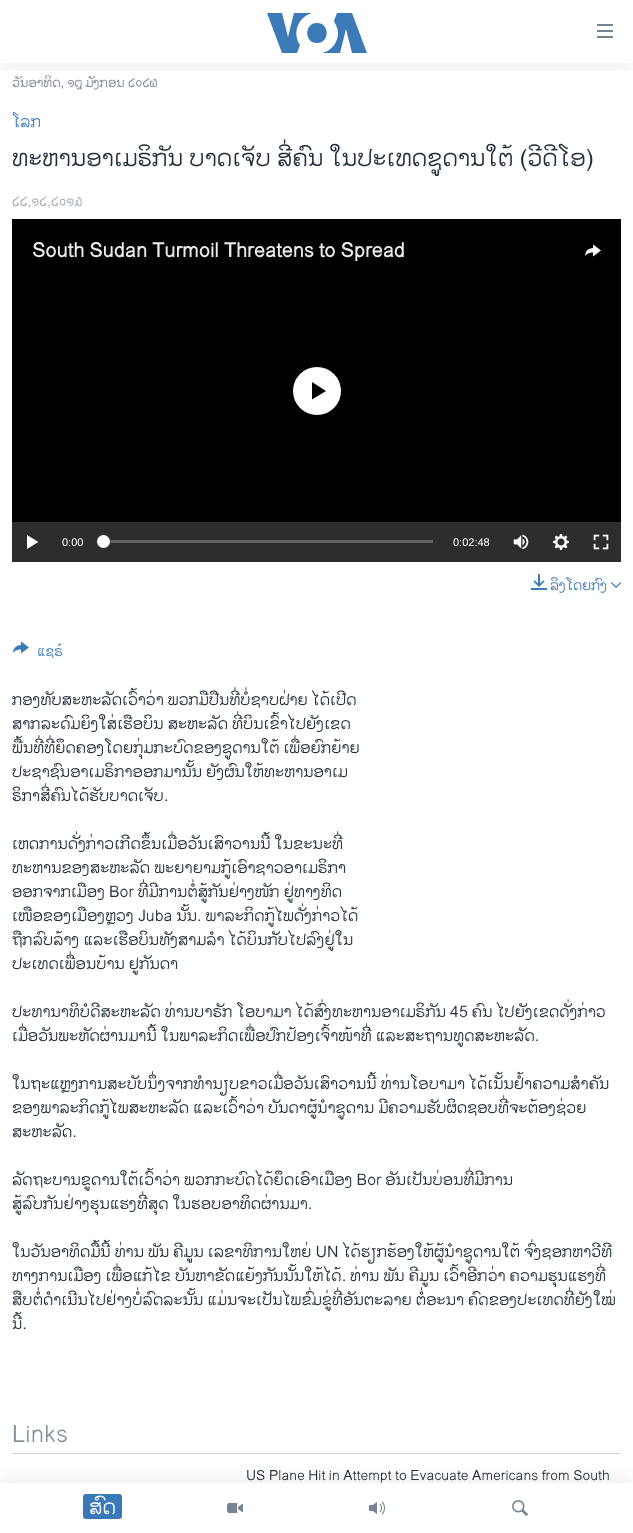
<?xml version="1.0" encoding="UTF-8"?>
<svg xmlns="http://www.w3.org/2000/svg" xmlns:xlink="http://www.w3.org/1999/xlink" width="633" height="1533">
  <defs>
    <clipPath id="clip1"><rect x="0" y="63" width="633" height="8" /></clipPath>
  </defs>
  <rect width="100%" height="100%" fill="#ffffff" />
  <rect x="12" y="219" width="609" height="303" fill="#000000" />
  <image x="585" y="244" width="16" height="13" xlink:href="image1.png" />
  <circle cx="317" cy="391" r="24" fill="#ffffff" />
  <path d="M 312 399.5 l 14 -8.5 l -14 -9 z" fill="#000000" />
  <rect x="12" y="522" width="609" height="40" fill="#2d2d2d" />
  <path d="M 27 549 l 11.5 -7 l -11.5 -7 z" fill="#ffffff" />
  <rect x="103" y="540" width="330" height="3" fill="#626262" />
  <rect x="97" y="535" width="13" height="13" rx="6.5" fill="#414144" filter="blur(1.5px)" />
  <circle cx="103.5" cy="541.5" r="6.5" fill="#ffffff" />
  <image x="513" y="534" width="16" height="16" xlink:href="image2.png" />
  <image x="553" y="534" width="16" height="16" xlink:href="image3.png" />
  <image x="593" y="534" width="16" height="16" xlink:href="image4.png" />
  <image x="531" y="574" width="16" height="16" xlink:href="image5.png" />
  <image x="611" y="582" width="10" height="6" xlink:href="image6.png" />
  <image x="13" y="641" width="16" height="13" xlink:href="image7.png" />
  <rect x="12" y="1453" width="609" height="1" fill="#cbd1d6" />
  <g clip-path="url(#clip1)">
    <rect width="633" height="63" fill="#000000" fill-opacity="0.1" filter="blur(10px)" />
  </g>
  <path d="M 300 45 l -3 8 h -15 l -15 -40 h 15 l 6 24 l 6 -24 h 18 c -14 4 -20 20 -12 32 z m 17 -22 c -13 0 -13 20 0 20 c 13 0 13 -20 0 -20 z m 21 10 c 0 10 -7 18 -16 20 h 18 l 6 -24 l 6 24 h 15 l -15 -40 h -15 l -3 8 c 2 4 4 8 4 12 z" fill="#3b79b7" />
  <image x="597" y="24" width="16" height="14" xlink:href="image8.png" />
  <rect y="1483" width="633" height="50" fill="#000000" fill-opacity="0.1" filter="blur(10px)" />
  <rect y="1483" width="633" height="50" fill="#ffffff" />
  <rect x="83" y="1494" width="39" height="25" rx="3" fill="#3a79b7" />
  <image x="227" y="1503" width="16" height="10" xlink:href="image9.png" />
  <image x="369" y="1501" width="16" height="14" xlink:href="image10.png" />
  <image x="512" y="1500" width="16" height="16" xlink:href="image11.png" />
  <text x="12" y="87" style="font-family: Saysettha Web; font-size: 13px; fill: #768492">ວັນອາທິດ, ໑໘ ມັງກອນ ໒໐໒໖</text>
  <text x="12" y="127" style="font-family: Saysettha Web; font-size: 16px; fill: #3a79b7">ໂລກ</text>
  <text x="12" y="166" style="font-family: Saysettha Web; font-size: 24px; fill: #222f3a">ທະຫານອາເມຣິກັນ ບາດເຈັບ ສີ່ຄົນ ໃນປະເທດຊູດານໃຕ້ (ວີດີໂອ)</text>
  <text x="12" y="206" style="font-family: Saysettha Web; font-size: 14px; fill: #a1aab4">໒໒,໑໒,໒໐໑໓</text>
  <text x="32" y="257" style="font-family: Saysettha Web; font-size: 20px; font-weight: bold; fill: #ebebeb">South Sudan Turmoil Threatens to Spread</text>
  <text x="62" y="546" style="font-family: Liberation Sans; font-size: 11px; fill: #ffffff">0:00</text>
  <text x="453" y="546" style="font-family: Liberation Sans; font-size: 11px; fill: #ffffff">0:02:48</text>
  <text x="550" y="590" style="font-family: Saysettha Web; font-size: 14px; fill: #3a79b7">ລິງໂດຍກົງ</text>
  <text x="37" y="656" style="font-family: Saysettha Web; font-size: 14px; fill: #3a79b7">ແຊຣ໌</text>
  <text x="12" y="705" style="font-family: Saysettha Web; font-size: 16px; fill: #222f3a">ກອງທັບສະຫະລັດເວົ້າວ່າ ພວກມືປືນທີ່ບໍ່ຊາບຝ່າຍ ໄດ້ເປີດ</text>
  <text x="12" y="729" style="font-family: Saysettha Web; font-size: 16px; fill: #222f3a">ສາກລະດົມຍິງໃສ່ເຮືອບິນ ສະຫະລັດ ທີ່ບິນເຂົ້າໄປຍັງເຂດ</text>
  <text x="12" y="753" style="font-family: Saysettha Web; font-size: 16px; fill: #222f3a">ພື້ນທີ່ທີ່ຍຶດຄອງໂດຍກຸ່ມກະບົດຂອງຊູດານໃຕ້ ເພື່ອຍົກຍ້າຍ</text>
  <text x="12" y="777" style="font-family: Saysettha Web; font-size: 16px; fill: #222f3a">ປະຊາຊົນອາເມຣິກາອອກມານັ້ນ ຍັງຜົນໃຫ້ທະຫານອາເມ</text>
  <text x="12" y="801" style="font-family: Saysettha Web; font-size: 16px; fill: #222f3a">ຣິກາສີ່ຄົນໄດ້ຮັບບາດເຈັບ.</text>
  <text x="12" y="849" style="font-family: Saysettha Web; font-size: 16px; fill: #222f3a">ເຫດການດັ່ງກ່າວເກີດຂຶ້ນເມື່ອວັນເສົາວານນີ້ ໃນຂະນະທີ່</text>
  <text x="12" y="873" style="font-family: Saysettha Web; font-size: 16px; fill: #222f3a">ທະຫານຂອງສະຫະລັດ ພະຍາຍາມກູ້ເອົາຊາວອາເມຣິກາ</text>
  <text x="12" y="897" style="font-family: Saysettha Web; font-size: 16px; fill: #222f3a">ອອກຈາກເມືອງ Bor ທີ່ມີການຕໍ່ສູ້ກັນຢ່າງໜັກ ຢູ່ທາງທິດ</text>
  <text x="12" y="921" style="font-family: Saysettha Web; font-size: 16px; fill: #222f3a">ເໜືອຂອງເມືອງຫຼວງ Juba ນັ້ນ. ພາລະກິດກູ້ໄພດັ່ງກ່າວໄດ້</text>
  <text x="12" y="945" style="font-family: Saysettha Web; font-size: 16px; fill: #222f3a">ຖືກລົບລ້າງ ແລະເຮືອບິນທັງສາມລໍາ ໄດ້ບິນກັບໄປລົງຢູ່ໃນ</text>
  <text x="12" y="969" style="font-family: Saysettha Web; font-size: 16px; fill: #222f3a">ປະເທດເພື່ອນບ້ານ ຢູກັນດາ</text>
  <text x="12" y="1017" style="font-family: Saysettha Web; font-size: 16px; fill: #222f3a">ປະທານາທິບໍດີສະຫະລັດ ທ່ານບາຣັກ ໂອບາມາ ໄດ້ສົ່ງທະຫານອາເມຣິກັນ 45 ຄົນ ໄປຍັງເຂດດັ່ງກ່າວ</text>
  <text x="12" y="1041" style="font-family: Saysettha Web; font-size: 16px; fill: #222f3a">ເມື່ອວັນພະຫັດຜ່ານມານີ້ ໃນພາລະກິດເພື່ອປົກປ້ອງເຈົ້າໜ້າທີ່ ແລະສະຖານທູດສະຫະລັດ.</text>
  <text x="12" y="1089" style="font-family: Saysettha Web; font-size: 16px; fill: #222f3a">ໃນຖະແຫຼງການສະບັບນຶ່ງຈາກທໍານຽບຂາວເມື່ອວັນເສົາວານນີ້ ທ່ານໂອບາມາ ໄດ້ເນັ້ນຢໍ້າຄວາມສໍາຄັນ</text>
  <text x="12" y="1113" style="font-family: Saysettha Web; font-size: 16px; fill: #222f3a">ຂອງພາລະກິດກູ້ໄພສະຫະລັດ ແລະເວົ້າວ່າ ບັນດາຜູ້ນໍາຊູດານ ມີຄວາມຮັບຜິດຊອບທີ່ຈະຕ້ອງຊ່ວຍ</text>
  <text x="12" y="1137" style="font-family: Saysettha Web; font-size: 16px; fill: #222f3a">ສະຫະລັດ.</text>
  <text x="12" y="1185" style="font-family: Saysettha Web; font-size: 16px; fill: #222f3a">ລັດຖະບານຂູດານໃຕ້ເວົ້າວ່າ ພວກກະບົດໄດ້ຍຶດເອົາເມືອງ Bor ອັນເປັນບ່ອນທີ່ມີການ</text>
  <text x="12" y="1209" style="font-family: Saysettha Web; font-size: 16px; fill: #222f3a">ສູ້ລົບກັນຢ່າງຮຸນແຮງທີ່ສຸດ ໃນຮອບອາທິດຜ່ານມາ.</text>
  <text x="12" y="1257" style="font-family: Saysettha Web; font-size: 16px; fill: #222f3a">ໃນວັນອາທິດມື້ນີ້ ທ່ານ ພັນ ຄີມູນ ເລຂາທິການໃຫຍ່ UN ໄດ້ຮຽກຮ້ອງໃຫ້ຜູ້ນໍາຊູດານໃຕ້ ຈົ່ງຊອກຫາວີທີ</text>
  <text x="12" y="1281" style="font-family: Saysettha Web; font-size: 16px; fill: #222f3a">ທາງການເມືອງ ເພື່ອແກ້ໄຂ ບັນຫາຂັດແຍ້ງກັນນັ້ນໃຫ້ໄດ້. ທ່ານ ພັນ ຄີມູນ ເວົ້າອີກວ່າ ຄວາມຮຸນແຮງທີ່</text>
  <text x="12" y="1305" style="font-family: Saysettha Web; font-size: 16px; fill: #222f3a">ສືບຕໍ່ດໍາເນີນໄປຢ່າງບໍ່ລົດລະນັ້ນ ແມ່ນຈະເປັນໄພຂົ່ມຂູ່ທີ່ອັນຕະລາຍ ຕໍ່ອະນາ ຄົດຂອງປະເທດທີ່ຍັງໃໝ່</text>
  <text x="12" y="1329" style="font-family: Saysettha Web; font-size: 16px; fill: #222f3a">ນີ້.</text>
  <text x="12" y="1442" style="font-family: Saysettha Web; font-size: 24px; fill: #84919d">Links</text>
  <text x="246" y="1480" style="font-family: Saysettha Web; font-size: 14px; fill: #222f3a">US Plane Hit in Attempt to Evacuate Americans from South</text>
  <text x="89" y="1514" style="font-family: Saysettha Web; font-size: 21px; fill: #ffffff">ສົດ</text>
</svg>
